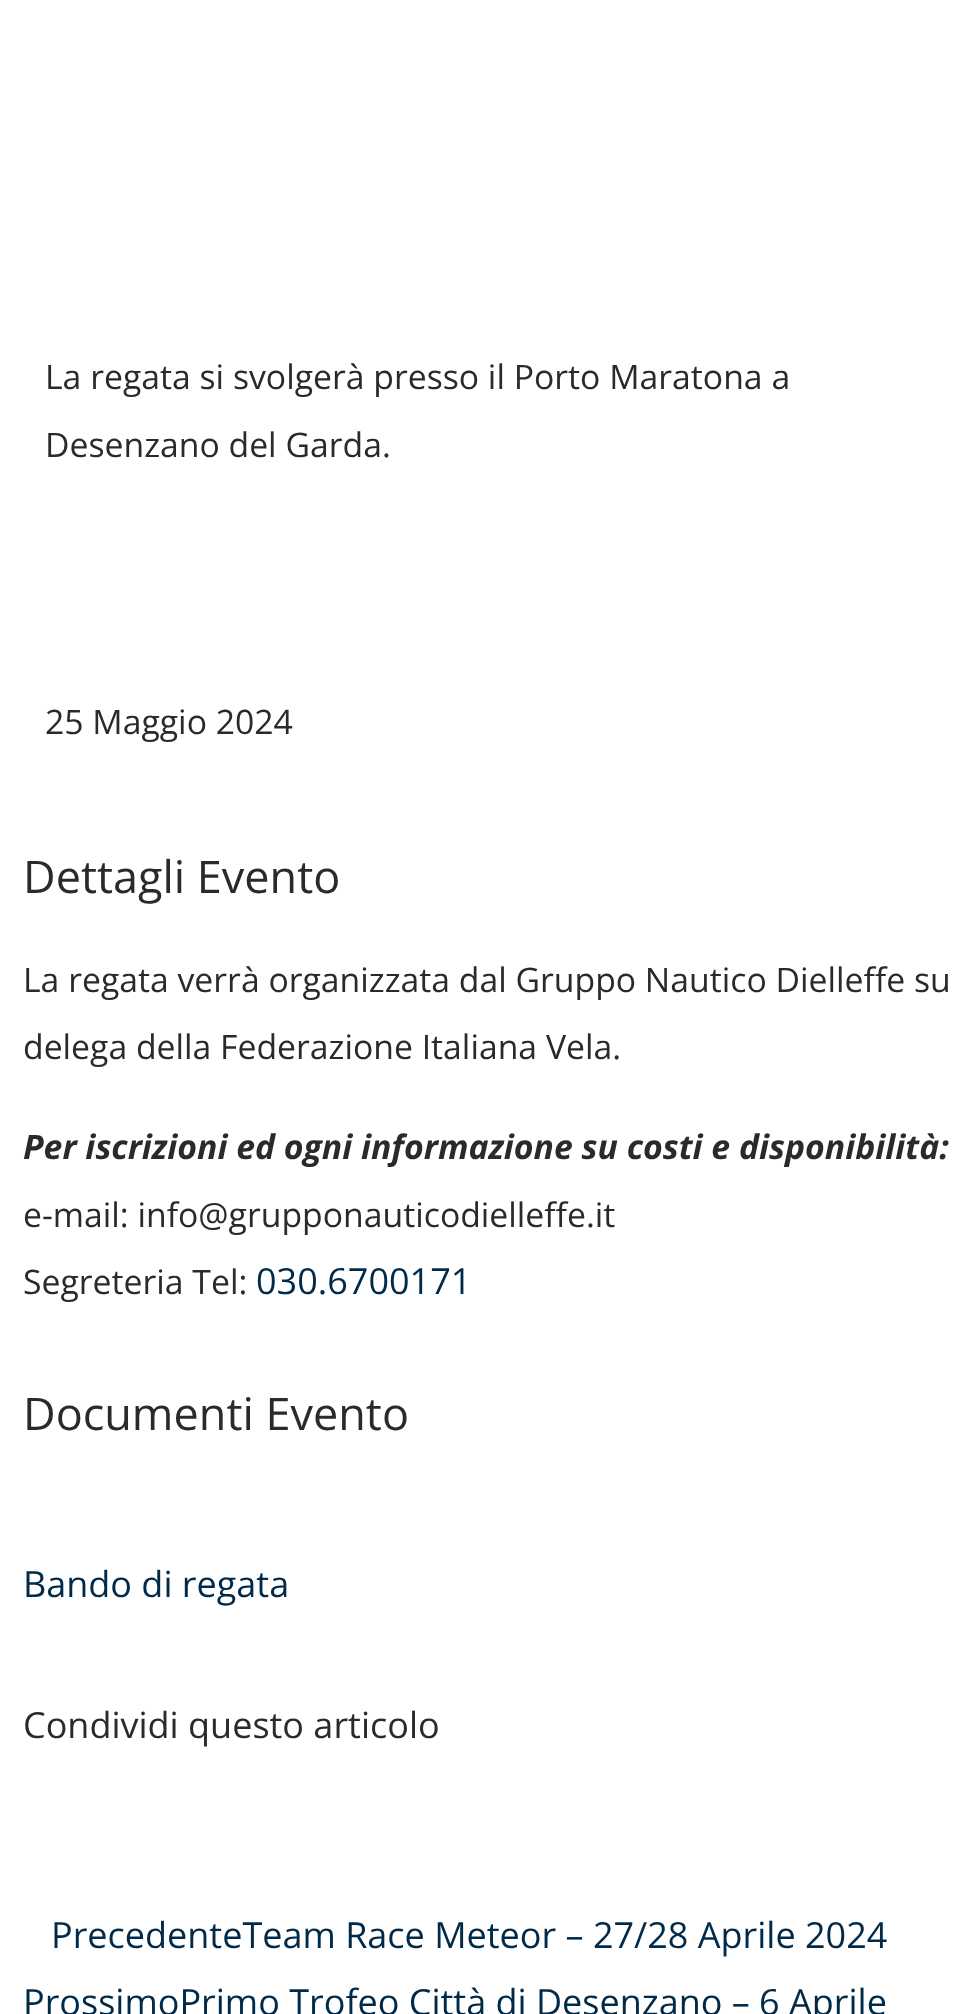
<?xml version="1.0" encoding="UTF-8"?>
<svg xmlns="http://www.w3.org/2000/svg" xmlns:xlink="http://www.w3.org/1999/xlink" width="974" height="2014">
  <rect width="100%" height="100%" fill="#ffffff" />
  <text x="45" y="389" style="font-family: Open Sans; font-size: 33.75px; fill: #2a2a2a">La regata si svolgerà presso il Porto Maratona a</text>
  <text x="45" y="457" style="font-family: Open Sans; font-size: 33.75px; fill: #2a2a2a">Desenzano del Garda.</text>
  <text x="45" y="734" style="font-family: Open Sans; font-size: 33.75px; fill: #2a2a2a">25 Maggio 2024</text>
  <text x="23" y="893" style="font-family: Open Sans; font-size: 45px; fill: #2a2a2a">Dettagli Evento</text>
  <text x="23" y="992" style="font-family: Open Sans; font-size: 33.75px; fill: #2a2a2a">La regata verrà organizzata dal Gruppo Nautico Dielleffe su</text>
  <text x="23" y="1059" style="font-family: Open Sans; font-size: 33.75px; fill: #2a2a2a">delega della Federazione Italiana Vela.</text>
  <text x="23" y="1159" style="font-family: Open Sans; font-size: 33.75px; font-weight: bold; font-style: italic; fill: #2a2a2a">Per iscrizioni ed ogni informazione su costi e disponibilità:</text>
  <text x="23" y="1227" style="font-family: Open Sans; font-size: 33.75px; fill: #2a2a2a">e-mail: info@grupponauticodielleffe.it</text>
  <text x="23" y="1294" style="font-family: Open Sans; font-size: 33.75px; fill: #2a2a2a">Segreteria Tel:</text>
  <text x="256" y="1294" style="font-family: Open Sans; font-size: 36px; fill: #002a49">030.6700171</text>
  <text x="23" y="1430" style="font-family: Open Sans; font-size: 45px; fill: #2a2a2a">Documenti Evento</text>
  <text x="23" y="1597" style="font-family: Open Sans; font-size: 36px; fill: #002a49">Bando di regata</text>
  <text x="23" y="1738" style="font-family: Open Sans; font-size: 36px; fill: #2a2a2a">Condividi questo articolo</text>
  <text x="51" y="1948" style="font-family: Open Sans; font-size: 36px; fill: #002a49">PrecedenteTeam Race Meteor – 27/28 Aprile 2024</text>
  <text x="23" y="2015" style="font-family: Open Sans; font-size: 36px; fill: #002a49">ProssimoPrimo Trofeo Città di Desenzano – 6 Aprile</text>
</svg>
